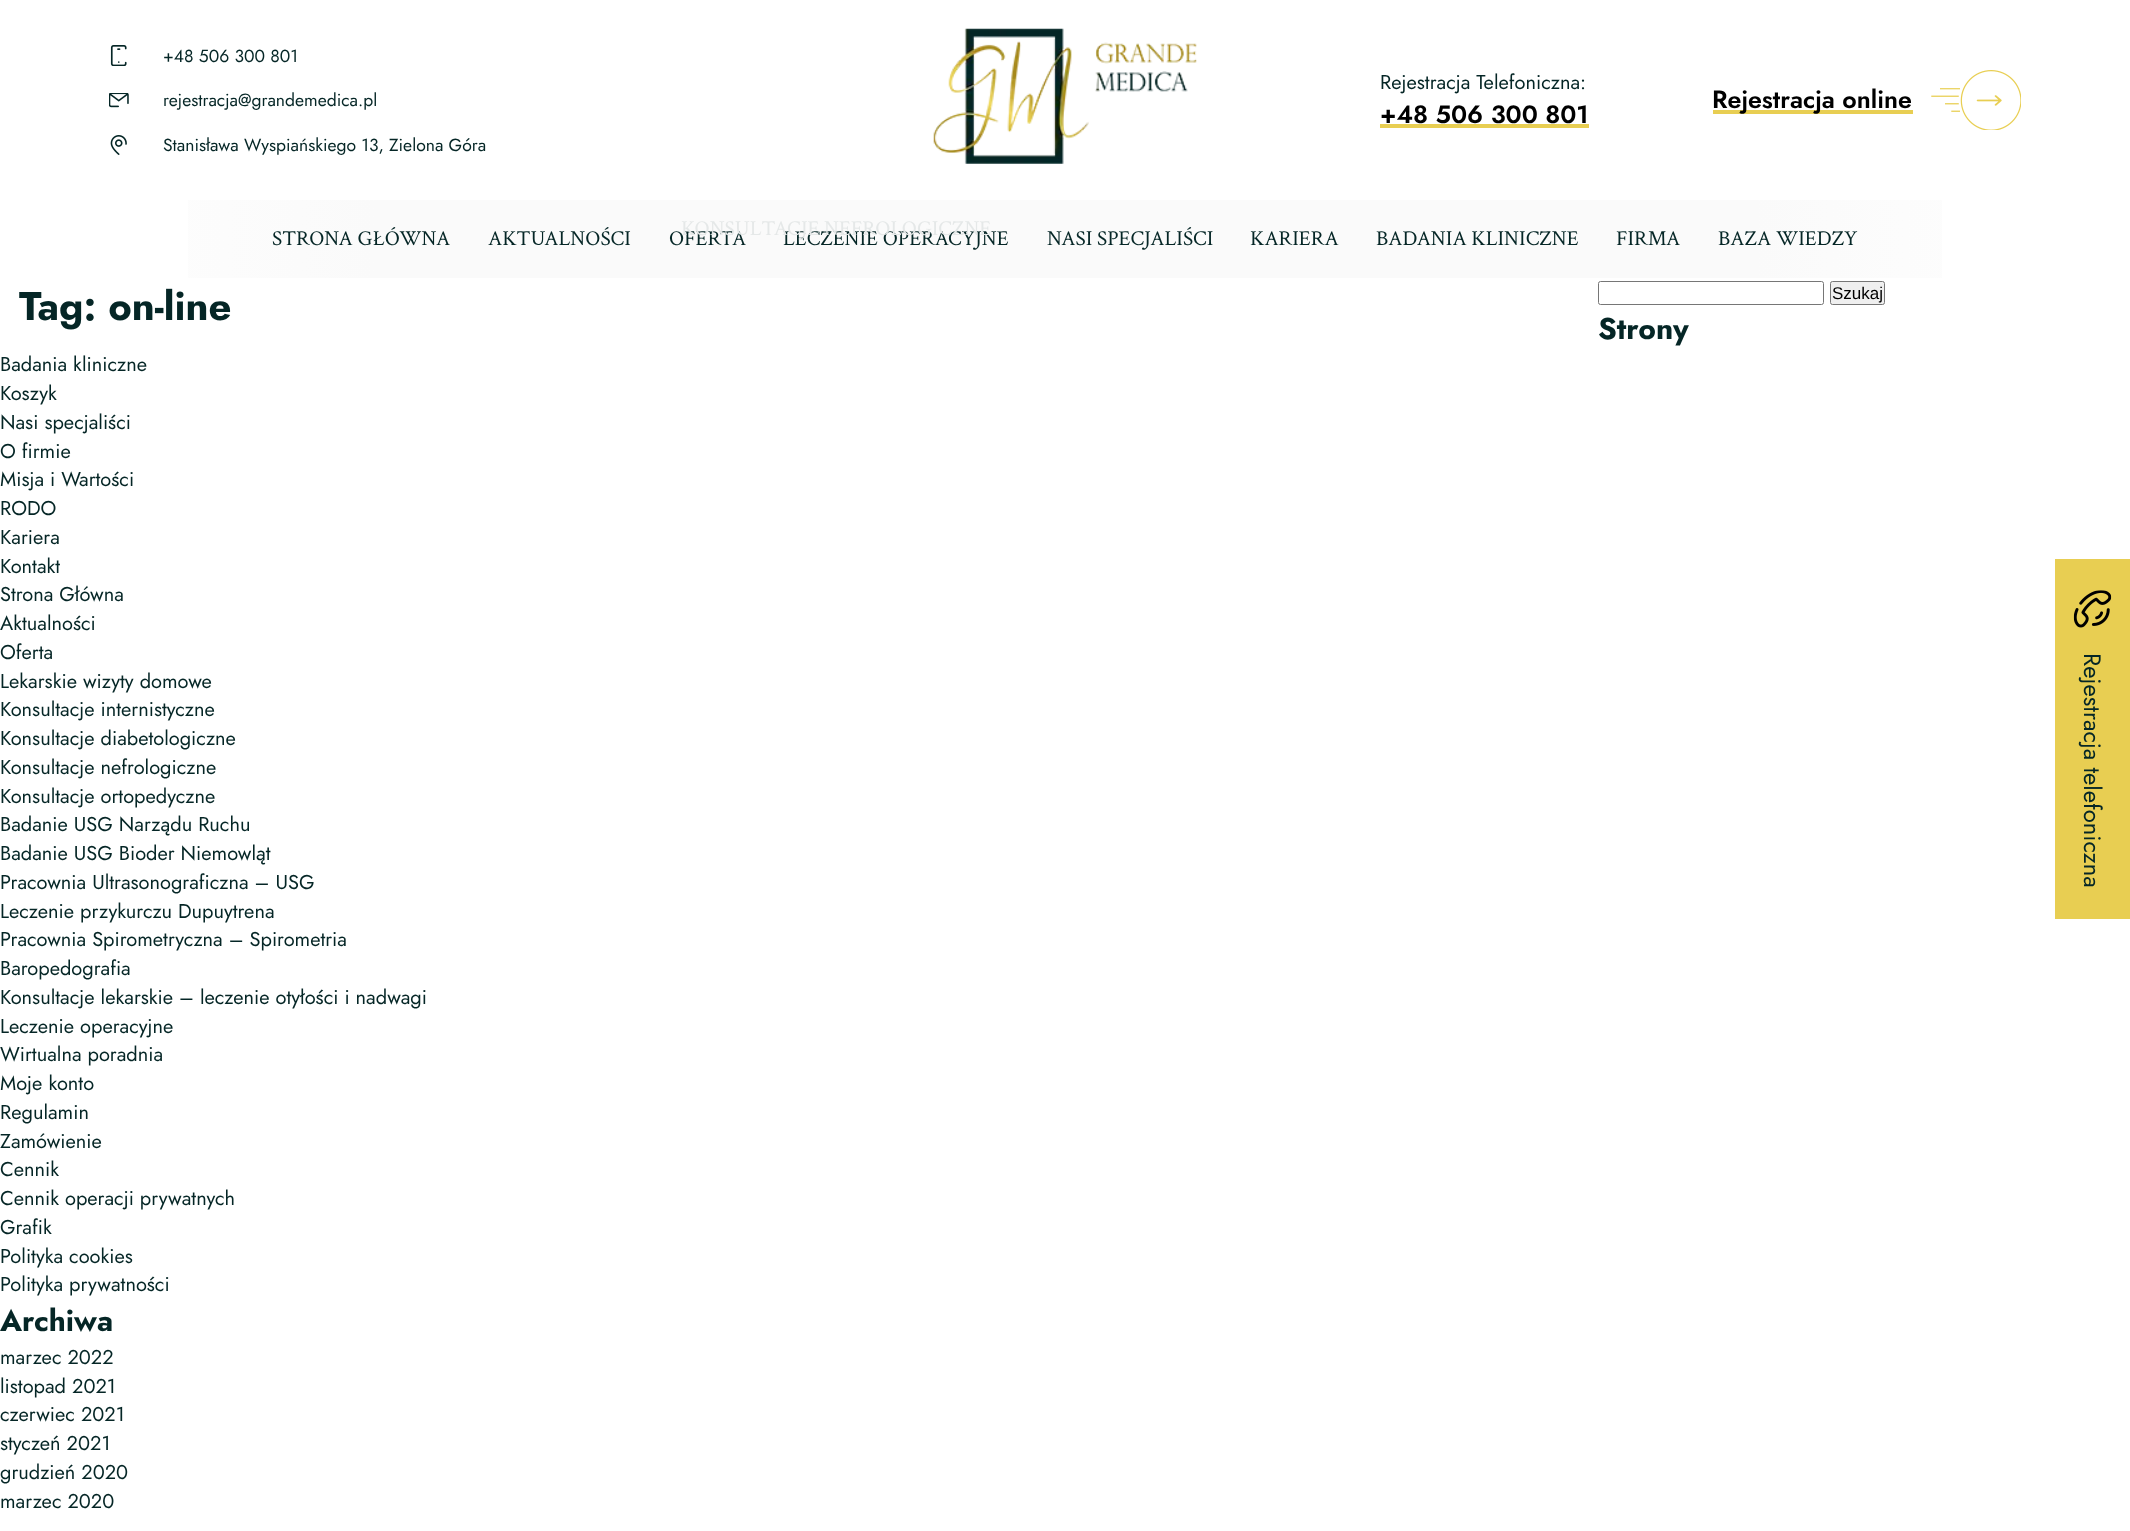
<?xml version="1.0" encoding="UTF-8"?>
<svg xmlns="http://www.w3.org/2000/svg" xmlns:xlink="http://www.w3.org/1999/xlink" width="2130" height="1531">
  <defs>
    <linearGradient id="g1" gradientUnits="userSpaceOnUse" x1="375" y1="239" x2="0" y2="239"><stop offset="0" stop-color="#fafafa" /><stop offset="1" stop-color="#ffffff" /></linearGradient>
    <linearGradient id="g2" gradientUnits="userSpaceOnUse" x1="2130" y1="239" x2="1755" y2="239"><stop offset="0" stop-color="#ffffff" /><stop offset="1" stop-color="#fafafa" /></linearGradient>
  </defs>
  <rect width="100%" height="100%" fill="#ffffff" />
  <image x="110" y="45" width="17" height="21" xlink:href="image1.png" />
  <image x="109" y="93" width="20" height="15" xlink:href="image2.png" />
  <image x="110" y="135" width="17" height="20" xlink:href="image3.png" />
  <image x="933" y="28" width="264" height="136" xlink:href="image4.png" />
  <rect x="1380" y="124" width="209" height="4" fill="#e8ce52" />
  <rect x="1713" y="110" width="200" height="4" fill="#e8ce52" />
  <image x="1931" y="70" width="90" height="60" xlink:href="image5.png" />
  <rect x="375" y="200" width="1380" height="78" fill="#fafafa" />
  <rect x="188" y="200" width="187" height="78" fill="url(#g1)" />
  <rect x="1755" y="200" width="187" height="78" fill="url(#g2)" />
  <rect x="1598.5" y="281.5" width="225" height="23" rx="2" fill="none" stroke="#767676" />
  <rect x="1830.5" y="281.5" width="54" height="23" rx="2" fill="#efefef" stroke="#767676" />
  <rect x="2055" y="559" width="75" height="360" fill="#e8ce52" />
  <image x="2073" y="590" width="39" height="38" xlink:href="image6.png" />
  <text x="163" y="62" style="font-family: Jost; font-size: 17.5px; fill: #052626">+48 506 300 801</text>
  <text x="163" y="106" style="font-family: Jost; font-size: 17.5px; fill: #052626">rejestracja@grandemedica.pl</text>
  <text x="163" y="151" style="font-family: Jost; font-size: 17.5px; fill: #052626">Stanisława Wyspiańskiego 13, Zielona Góra</text>
  <text x="1380" y="89" style="font-family: Jost; font-size: 20px; fill: #052626">Rejestracja Telefoniczna:</text>
  <text x="1380" y="123" style="font-family: Jost; font-size: 25px; font-weight: 600; fill: #000000">+48 506 300 801</text>
  <text x="1712" y="108" style="font-family: Jost; font-size: 25px; font-weight: 600; fill: #000000">Rejestracja online</text>
  <text x="272" y="245" style="font-family: Crimson Text; font-size: 21.25px; fill: #052626">STRONA GŁÓWNA</text>
  <text x="488" y="245" style="font-family: Crimson Text; font-size: 21.25px; fill: #052626">AKTUALNOŚCI</text>
  <text x="669" y="245" style="font-family: Crimson Text; font-size: 21.25px; fill: #052626">OFERTA</text>
  <text x="783" y="245" style="font-family: Crimson Text; font-size: 21.25px; fill: #052626">LECZENIE OPERACYJNE</text>
  <text x="1047" y="245" style="font-family: Crimson Text; font-size: 21.25px; fill: #052626">NASI SPECJALIŚCI</text>
  <text x="1250" y="245" style="font-family: Crimson Text; font-size: 21.25px; fill: #052626">KARIERA</text>
  <text x="1376" y="245" style="font-family: Crimson Text; font-size: 21.25px; fill: #052626">BADANIA KLINICZNE</text>
  <text x="1616" y="245" style="font-family: Crimson Text; font-size: 21.25px; fill: #052626">FIRMA</text>
  <text x="1718" y="245" style="font-family: Crimson Text; font-size: 21.25px; fill: #052626">BAZA WIEDZY</text>
  <text x="681" y="235" style="font-family: Crimson Text; font-size: 21.25px; fill: #e5e8e8">KONSULTACJE NEFROLOGICZNE</text>
  <text x="1832" y="299" style="font-family: Liberation Sans; font-size: 17px; fill: #000000">Szukaj</text>
  <text x="1598" y="339" style="font-family: Jost; font-size: 30px; font-weight: bold; fill: #052626">Strony</text>
  <text x="0" y="371" style="font-family: Jost; font-size: 20px; fill: #052626">Badania kliniczne</text>
  <text x="0" y="400" style="font-family: Jost; font-size: 20px; fill: #052626">Koszyk</text>
  <text x="0" y="429" style="font-family: Jost; font-size: 20px; fill: #052626">Nasi specjaliści</text>
  <text x="0" y="458" style="font-family: Jost; font-size: 20px; fill: #052626">O firmie</text>
  <text x="0" y="486" style="font-family: Jost; font-size: 20px; fill: #052626">Misja i Wartości</text>
  <text x="0" y="515" style="font-family: Jost; font-size: 20px; fill: #052626">RODO</text>
  <text x="0" y="544" style="font-family: Jost; font-size: 20px; fill: #052626">Kariera</text>
  <text x="0" y="573" style="font-family: Jost; font-size: 20px; fill: #052626">Kontakt</text>
  <text x="0" y="601" style="font-family: Jost; font-size: 20px; fill: #052626">Strona Główna</text>
  <text x="0" y="630" style="font-family: Jost; font-size: 20px; fill: #052626">Aktualności</text>
  <text x="0" y="659" style="font-family: Jost; font-size: 20px; fill: #052626">Oferta</text>
  <text x="0" y="688" style="font-family: Jost; font-size: 20px; fill: #052626">Lekarskie wizyty domowe</text>
  <text x="0" y="716" style="font-family: Jost; font-size: 20px; fill: #052626">Konsultacje internistyczne</text>
  <text x="0" y="745" style="font-family: Jost; font-size: 20px; fill: #052626">Konsultacje diabetologiczne</text>
  <text x="0" y="774" style="font-family: Jost; font-size: 20px; fill: #052626">Konsultacje nefrologiczne</text>
  <text x="0" y="803" style="font-family: Jost; font-size: 20px; fill: #052626">Konsultacje ortopedyczne</text>
  <text x="0" y="831" style="font-family: Jost; font-size: 20px; fill: #052626">Badanie USG Narządu Ruchu</text>
  <text x="0" y="860" style="font-family: Jost; font-size: 20px; fill: #052626">Badanie USG Bioder Niemowląt</text>
  <text x="0" y="889" style="font-family: Jost; font-size: 20px; fill: #052626">Pracownia Ultrasonograficzna – USG</text>
  <text x="0" y="918" style="font-family: Jost; font-size: 20px; fill: #052626">Leczenie przykurczu Dupuytrena</text>
  <text x="0" y="946" style="font-family: Jost; font-size: 20px; fill: #052626">Pracownia Spirometryczna – Spirometria</text>
  <text x="0" y="975" style="font-family: Jost; font-size: 20px; fill: #052626">Baropedografia</text>
  <text x="0" y="1004" style="font-family: Jost; font-size: 20px; fill: #052626">Konsultacje lekarskie – leczenie otyłości i nadwagi</text>
  <text x="0" y="1033" style="font-family: Jost; font-size: 20px; fill: #052626">Leczenie operacyjne</text>
  <text x="0" y="1061" style="font-family: Jost; font-size: 20px; fill: #052626">Wirtualna poradnia</text>
  <text x="0" y="1090" style="font-family: Jost; font-size: 20px; fill: #052626">Moje konto</text>
  <text x="0" y="1119" style="font-family: Jost; font-size: 20px; fill: #052626">Regulamin</text>
  <text x="0" y="1148" style="font-family: Jost; font-size: 20px; fill: #052626">Zamówienie</text>
  <text x="0" y="1176" style="font-family: Jost; font-size: 20px; fill: #052626">Cennik</text>
  <text x="0" y="1205" style="font-family: Jost; font-size: 20px; fill: #052626">Cennik operacji prywatnych</text>
  <text x="0" y="1234" style="font-family: Jost; font-size: 20px; fill: #052626">Grafik</text>
  <text x="0" y="1263" style="font-family: Jost; font-size: 20px; fill: #052626">Polityka cookies</text>
  <text x="0" y="1291" style="font-family: Jost; font-size: 20px; fill: #052626">Polityka prywatności</text>
  <text x="0" y="1331" style="font-family: Jost; font-size: 30px; font-weight: bold; fill: #052626">Archiwa</text>
  <text x="0" y="1364" style="font-family: Jost; font-size: 20px; fill: #052626">marzec 2022</text>
  <text x="0" y="1393" style="font-family: Jost; font-size: 20px; fill: #052626">listopad 2021</text>
  <text x="0" y="1421" style="font-family: Jost; font-size: 20px; fill: #052626">czerwiec 2021</text>
  <text x="0" y="1450" style="font-family: Jost; font-size: 20px; fill: #052626">styczeń 2021</text>
  <text x="0" y="1479" style="font-family: Jost; font-size: 20px; fill: #052626">grudzień 2020</text>
  <text x="0" y="1508" style="font-family: Jost; font-size: 20px; fill: #052626">marzec 2020</text>
  <text x="19" y="320" style="font-family: Jost; font-size: 40px; font-weight: bold; fill: #052626">Tag: on-line</text>
  <text x="2084" y="653" transform="rotate(90 2084 653)" style="font-family: Jost; font-size: 23.75px; fill: #052626">Rejestracja telefoniczna</text>
</svg>
